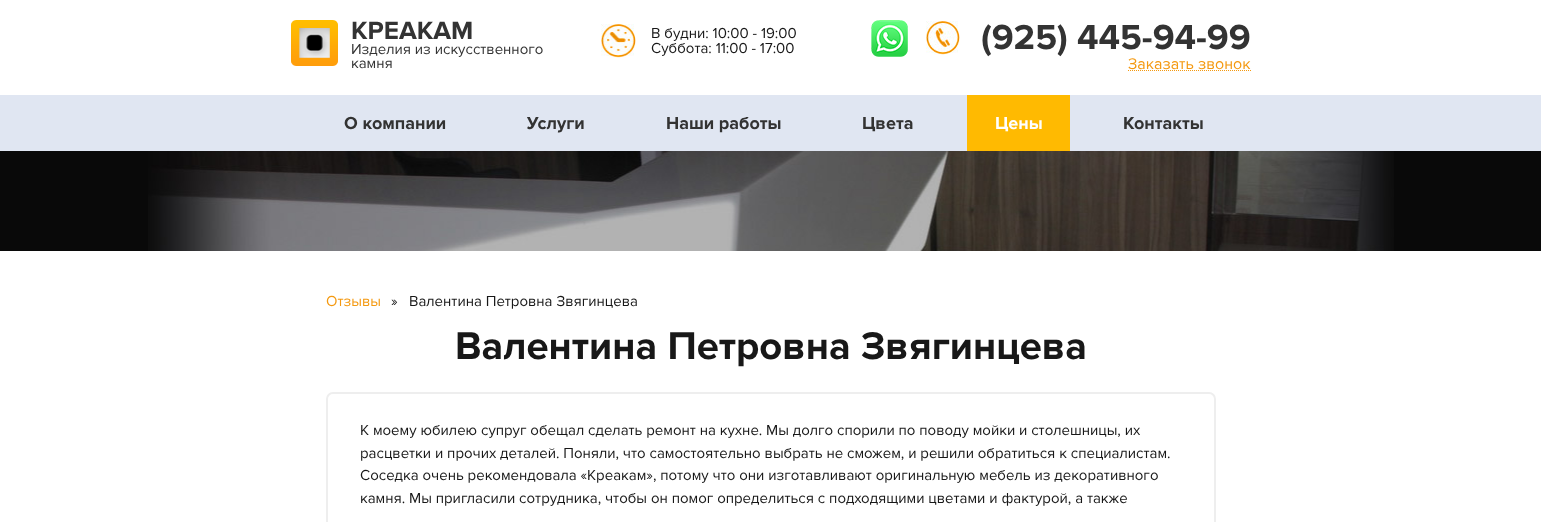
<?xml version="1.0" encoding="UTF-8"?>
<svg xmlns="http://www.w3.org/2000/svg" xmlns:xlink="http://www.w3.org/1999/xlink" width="1541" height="522">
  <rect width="100%" height="100%" fill="#ffffff" />
  <image x="291" y="20" width="47" height="46" xlink:href="image1.png" />
  <image x="601" y="24" width="35" height="34" xlink:href="image2.png" />
  <image x="871" y="20" width="37" height="37" xlink:href="image3.png" />
  <image x="926" y="21" width="34" height="34" xlink:href="image4.png" />
  <path d="M 1128 70.5 h 123" fill="none" stroke="#f49910" stroke-dasharray="1 1" />
  <rect y="95" width="1541" height="56" fill="#e0e6f2" />
  <rect x="967" y="95" width="103" height="56" fill="#ffba01" />
  <rect y="151" width="1541" height="100" fill="#090909" />
  <image x="148" y="151" width="1246" height="100" xlink:href="image5.png" />
  <rect x="327" y="393" width="888" height="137" rx="6" fill="none" stroke="#eeeeee" stroke-width="2" />
  <text x="351" y="39" style="font-family: Proxima Nova; font-size: 26px; font-weight: bold; fill: #333333">КРЕАКАМ</text>
  <text x="351" y="54" style="font-family: Proxima Nova; font-size: 15px; fill: #333333">Изделия из искусственного</text>
  <text x="351" y="68" style="font-family: Proxima Nova; font-size: 15px; fill: #333333">камня</text>
  <text x="651" y="38" style="font-family: Proxima Nova; font-size: 15px; fill: #181818">В будни: 10:00 - 19:00</text>
  <text x="651" y="53" style="font-family: Proxima Nova; font-size: 15px; fill: #181818">Суббота: 11:00 - 17:00</text>
  <text x="981" y="49" style="font-family: Proxima Nova; font-size: 36px; font-weight: bold; fill: #333333">(925) 445-94-99</text>
  <text x="1128" y="69" style="font-family: Proxima Nova; font-size: 16px; fill: #f49910">Заказать звонок</text>
  <text x="344" y="129" style="font-family: Proxima Nova; font-size: 18px; font-weight: bold; fill: #333333">О компании</text>
  <text x="527" y="129" style="font-family: Proxima Nova; font-size: 18px; font-weight: bold; fill: #333333">Услуги</text>
  <text x="666" y="129" style="font-family: Proxima Nova; font-size: 18px; font-weight: bold; fill: #333333">Наши работы</text>
  <text x="862" y="129" style="font-family: Proxima Nova; font-size: 18px; font-weight: bold; fill: #333333">Цвета</text>
  <text x="995" y="129" style="font-family: Proxima Nova; font-size: 18px; font-weight: bold; fill: #ffffff">Цены</text>
  <text x="1123" y="129" style="font-family: Proxima Nova; font-size: 18px; font-weight: bold; fill: #333333">Контакты</text>
  <text x="326" y="306" style="font-family: Proxima Nova; font-size: 15px; fill: #f49910">Отзывы</text>
  <text x="391" y="306" style="font-family: Proxima Nova; font-size: 15px; fill: #181818">»</text>
  <text x="409" y="306" style="font-family: Proxima Nova; font-size: 15px; fill: #181818">Валентина Петровна Звягинцева</text>
  <text x="455" y="359" style="font-family: Proxima Nova; font-size: 40px; font-weight: bold; fill: #181818">Валентина Петровна Звягинцева</text>
  <text x="360" y="435" style="font-family: Proxima Nova; font-size: 15px; fill: #181818">К моему юбилею супруг обещал сделать ремонт на кухне. Мы долго спорили по поводу мойки и столешницы, их</text>
  <text x="360" y="458" style="font-family: Proxima Nova; font-size: 15px; fill: #181818">расцветки и прочих деталей. Поняли, что самостоятельно выбрать не сможем, и решили обратиться к специалистам.</text>
  <text x="360" y="480" style="font-family: Proxima Nova; font-size: 15px; fill: #181818">Соседка очень рекомендовала «Креакам», потому что они изготавливают оригинальную мебель из декоративного</text>
  <text x="360" y="503" style="font-family: Proxima Nova; font-size: 15px; fill: #181818">камня. Мы пригласили сотрудника, чтобы он помог определиться с подходящими цветами и фактурой, а также</text>
</svg>
